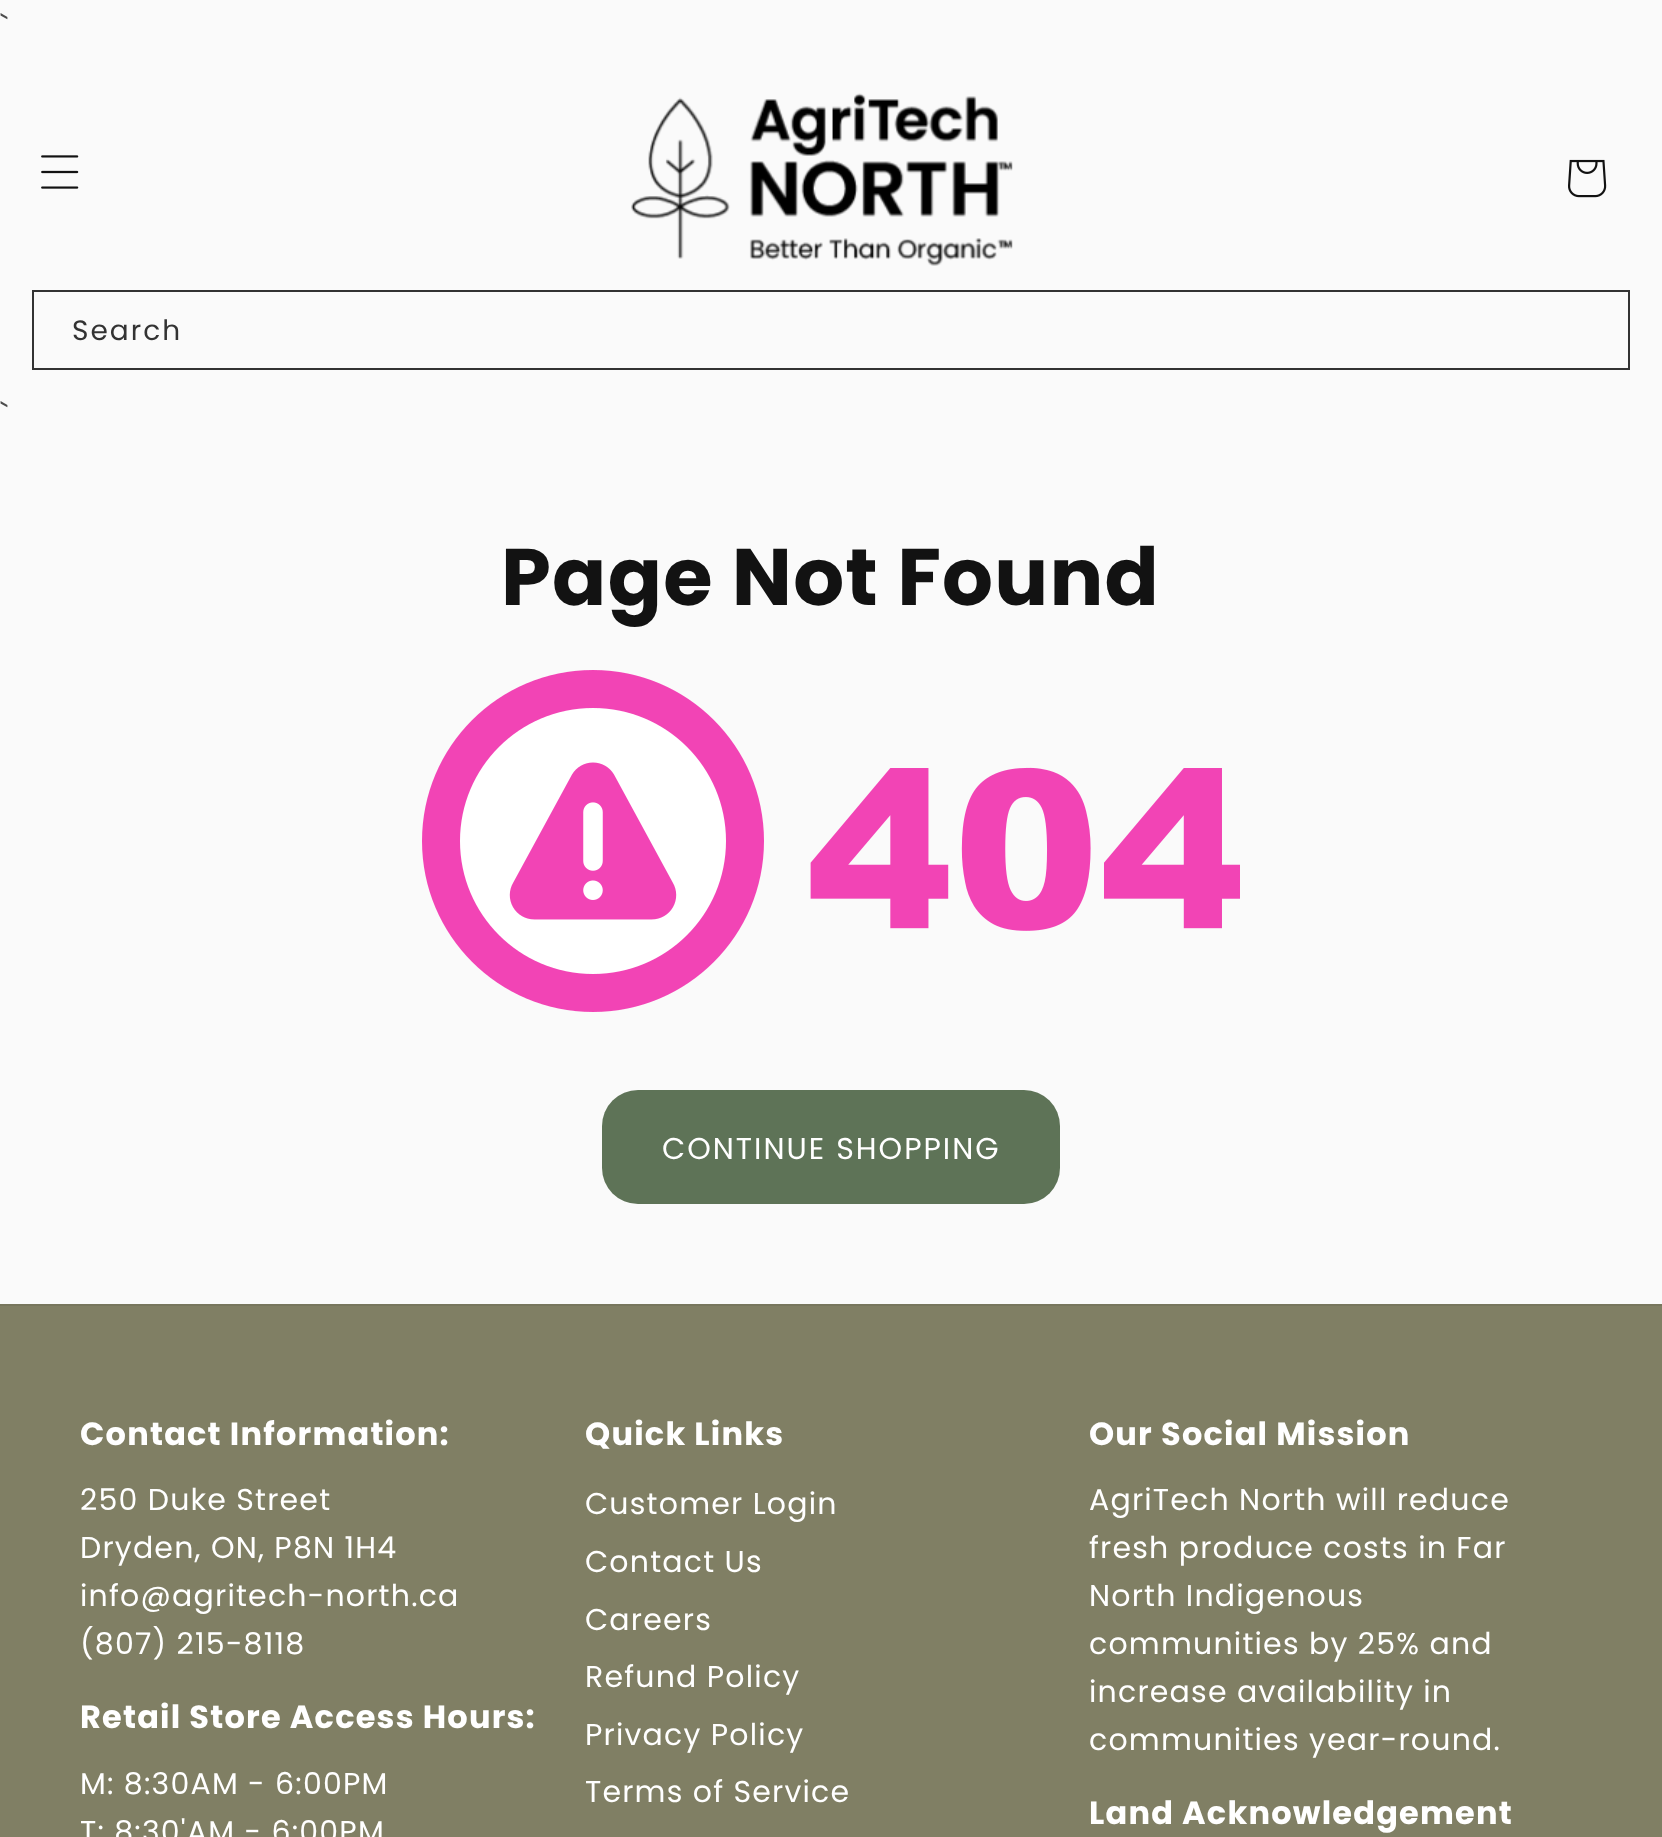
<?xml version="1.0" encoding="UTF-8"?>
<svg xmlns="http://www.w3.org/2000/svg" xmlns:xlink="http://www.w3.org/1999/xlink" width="1662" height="1837">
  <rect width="100%" height="100%" fill="#fafafa" />
  <image x="41" y="155" width="38" height="34" xlink:href="image1.png" />
  <image x="631" y="93" width="382" height="173" xlink:href="image2.png" />
  <image x="1568" y="159" width="39" height="39" xlink:href="image3.png" />
  <rect x="33" y="291" width="1596" height="78" fill="none" stroke="#333333" stroke-width="2" />
  <image x="422" y="670" width="818" height="342" xlink:href="image4.png" />
  <rect x="602" y="1090" width="458" height="114" rx="36" fill="#5e7357" />
  <rect y="1306" width="1662" height="531" fill="#807f64" />
  <rect y="1304" width="1662" height="2" fill="#77765d" />
  <text x="0" y="38" style="font-family: Poppins; font-size: 32px; letter-spacing: 1.2px; fill: #4c4c4c">`</text>
  <text x="72" y="340" style="font-family: Poppins; font-size: 28px; letter-spacing: 2px; fill: #333333">Search</text>
  <text x="0" y="426" style="font-family: Poppins; font-size: 32px; letter-spacing: 1.2px; fill: #4c4c4c">`</text>
  <text x="501" y="605" style="font-family: Poppins; font-size: 80px; font-weight: bold; letter-spacing: 1.2px; fill: #121212">Page Not Found</text>
  <text x="662" y="1159" style="font-family: Poppins; font-size: 30px; letter-spacing: 2px; fill: #ffffff">CONTINUE SHOPPING</text>
  <text x="80" y="1445" style="font-family: Poppins; font-size: 32px; font-weight: bold; letter-spacing: 1.2px; fill: #ffffff">Contact Information:</text>
  <text x="80" y="1510" style="font-family: Poppins; font-size: 30px; letter-spacing: 1.2px; fill: #ffffff">250 Duke Street</text>
  <text x="80" y="1558" style="font-family: Poppins; font-size: 30px; letter-spacing: 1.2px; fill: #ffffff">Dryden, ON, P8N 1H4</text>
  <text x="80" y="1606" style="font-family: Poppins; font-size: 30px; letter-spacing: 1.2px; fill: #ffffff">info@agritech-north.ca</text>
  <text x="80" y="1654" style="font-family: Poppins; font-size: 30px; letter-spacing: 1.2px; fill: #ffffff">(807) 215-8118</text>
  <text x="80" y="1728" style="font-family: Poppins; font-size: 32px; font-weight: bold; letter-spacing: 1.2px; fill: #ffffff">Retail Store Access Hours:</text>
  <text x="80" y="1794" style="font-family: Poppins; font-size: 30px; letter-spacing: 1.2px; fill: #ffffff">M: 8:30AM - 6:00PM</text>
  <text x="80" y="1842" style="font-family: Poppins; font-size: 30px; letter-spacing: 1.2px; fill: #ffffff">T: 8:30'AM - 6:00PM</text>
  <text x="585" y="1445" style="font-family: Poppins; font-size: 32px; font-weight: bold; letter-spacing: 1.2px; fill: #ffffff">Quick Links</text>
  <text x="585" y="1514" style="font-family: Poppins; font-size: 30px; letter-spacing: 1.2px; fill: #ffffff">Customer Login</text>
  <text x="585" y="1572" style="font-family: Poppins; font-size: 30px; letter-spacing: 1.2px; fill: #ffffff">Contact Us</text>
  <text x="585" y="1630" style="font-family: Poppins; font-size: 30px; letter-spacing: 1.2px; fill: #ffffff">Careers</text>
  <text x="585" y="1687" style="font-family: Poppins; font-size: 30px; letter-spacing: 1.2px; fill: #ffffff">Refund Policy</text>
  <text x="585" y="1745" style="font-family: Poppins; font-size: 30px; letter-spacing: 1.2px; fill: #ffffff">Privacy Policy</text>
  <text x="585" y="1802" style="font-family: Poppins; font-size: 30px; letter-spacing: 1.2px; fill: #ffffff">Terms of Service</text>
  <text x="1089" y="1445" style="font-family: Poppins; font-size: 32px; font-weight: bold; letter-spacing: 1.2px; fill: #ffffff">Our Social Mission</text>
  <text x="1089" y="1510" style="font-family: Poppins; font-size: 30px; letter-spacing: 1.2px; fill: #ffffff">AgriTech North will reduce</text>
  <text x="1089" y="1558" style="font-family: Poppins; font-size: 30px; letter-spacing: 1.2px; fill: #ffffff">fresh produce costs in Far</text>
  <text x="1089" y="1606" style="font-family: Poppins; font-size: 30px; letter-spacing: 1.2px; fill: #ffffff">North Indigenous</text>
  <text x="1089" y="1654" style="font-family: Poppins; font-size: 30px; letter-spacing: 1.2px; fill: #ffffff">communities by 25% and</text>
  <text x="1089" y="1702" style="font-family: Poppins; font-size: 30px; letter-spacing: 1.2px; fill: #ffffff">increase availability in</text>
  <text x="1089" y="1750" style="font-family: Poppins; font-size: 30px; letter-spacing: 1.2px; fill: #ffffff">communities year-round.</text>
  <text x="1089" y="1824" style="font-family: Poppins; font-size: 32px; font-weight: bold; letter-spacing: 1.2px; fill: #ffffff">Land Acknowledgement</text>
</svg>
